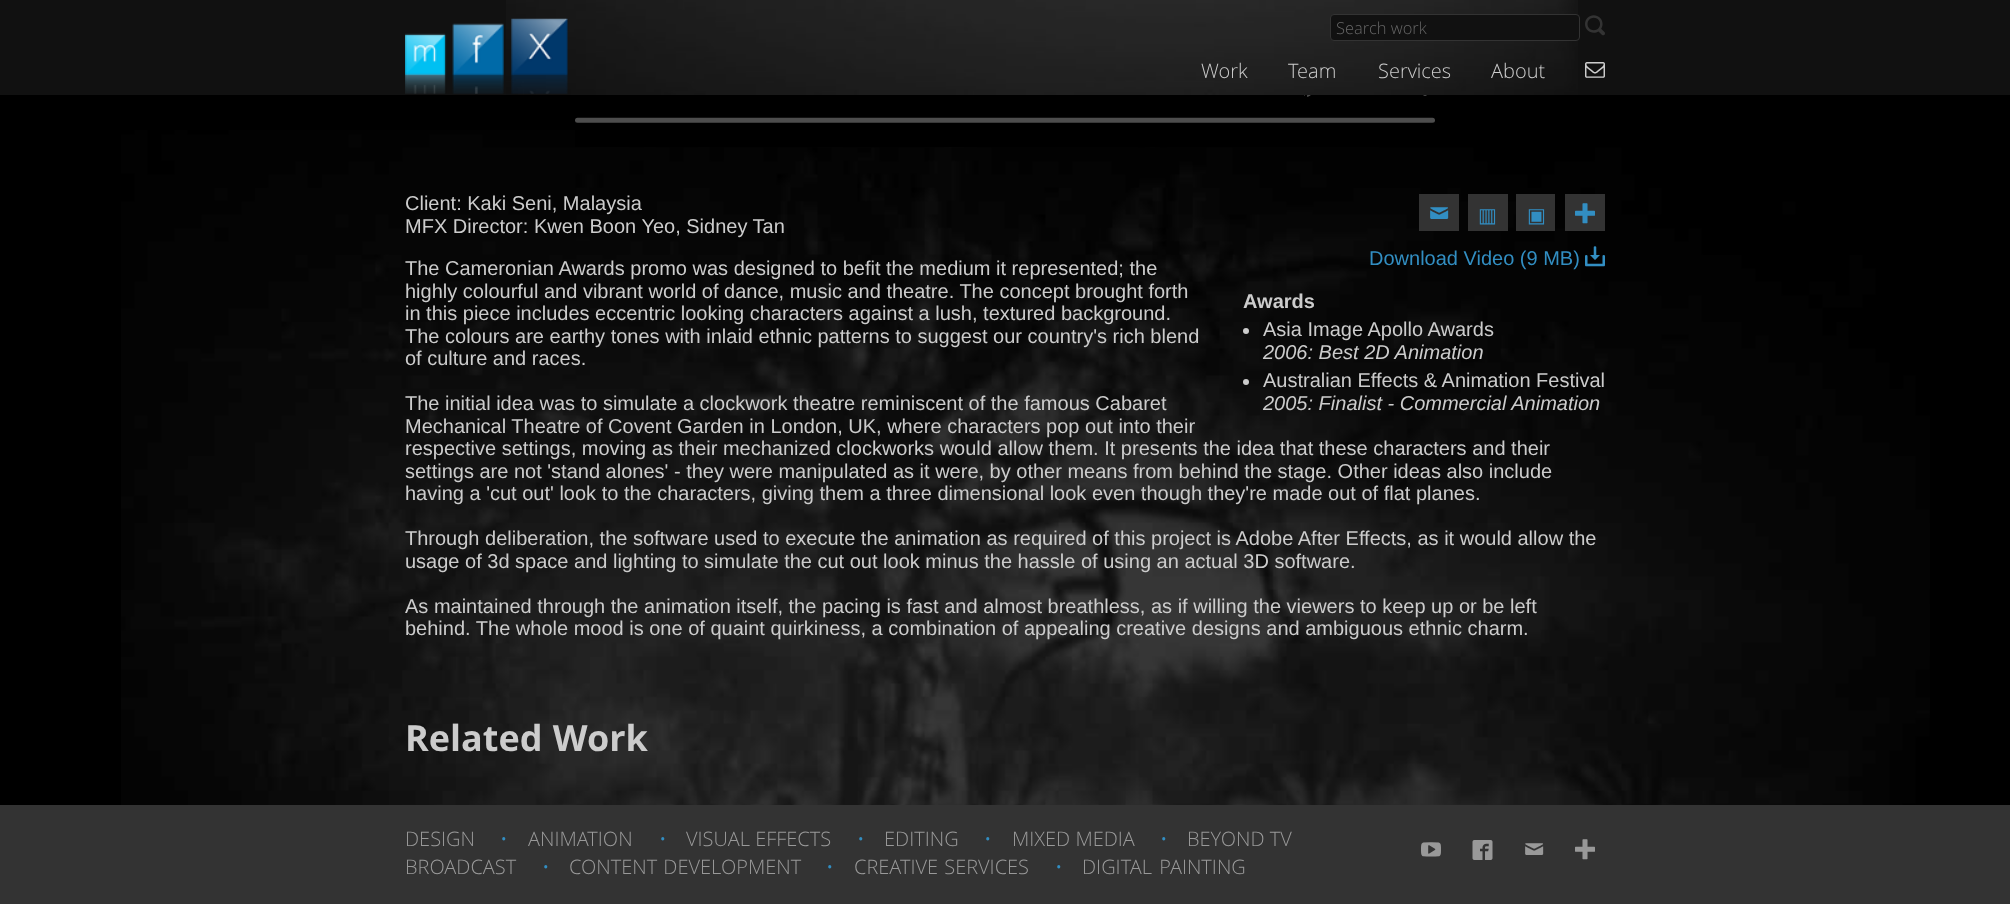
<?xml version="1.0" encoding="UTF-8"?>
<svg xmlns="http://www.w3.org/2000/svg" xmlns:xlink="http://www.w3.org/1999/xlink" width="2010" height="904">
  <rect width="100%" height="100%" fill="#000000" />
  <image x="121" y="130" width="1809" height="675" xlink:href="image1.png" />
  <rect width="2010" height="95" fill="#111111" />
  <image x="506" y="0" width="1072" height="95" xlink:href="image3.png" />
  <image x="405" y="18" width="163" height="76" xlink:href="image2.png" />
  <rect x="1330.5" y="14.5" width="249" height="26" rx="3.5" fill="#111111" stroke="#333333" />
  <image x="575" y="95" width="860" height="52" xlink:href="image4.png" />
  <rect x="1419" y="194" width="40" height="37" fill="#333333" />
  <rect x="1468" y="194" width="40" height="37" fill="#333333" />
  <rect x="1516" y="194" width="39" height="37" fill="#333333" />
  <rect x="1565" y="194" width="40" height="37" fill="#333333" />
  <circle cx="1246" cy="331" r="3" fill="#cccccc" />
  <circle cx="1246" cy="382" r="3" fill="#cccccc" />
  <rect y="805" width="2010" height="99" fill="#333333" />
  <image x="1472" y="840" width="21" height="20" xlink:href="image5.png" />
  <text x="1336" y="34" style="font-family: Open Sans; font-size: 16.5px; font-weight: 300; fill: #666666">Search work</text>
  <text x="1585" y="34" style="font-family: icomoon; font-size: 20px; fill: #333333">⁇</text>
  <text x="1201" y="78" style="font-family: Open Sans; font-size: 20px; font-weight: 300; fill: #cccccc">Work</text>
  <text x="1288" y="78" style="font-family: Open Sans; font-size: 20px; font-weight: 300; fill: #cccccc">Team</text>
  <text x="1378" y="78" style="font-family: Open Sans; font-size: 20px; font-weight: 300; fill: #cccccc">Services</text>
  <text x="1491" y="78" style="font-family: Open Sans; font-size: 20px; font-weight: 300; fill: #cccccc">About</text>
  <text x="1585" y="78" style="font-family: icomoon; font-size: 20px; fill: #cccccc">✉</text>
  <text x="405" y="210" style="font-family: Liberation Sans; font-size: 20px; fill: #cccccc">Client: Kaki Seni, Malaysia</text>
  <text x="1429" y="222" style="font-family: icomoon; font-size: 20px; fill: #328ec2">□</text>
  <text x="1478" y="222" style="font-family: DejaVu Sans; font-size: 20px; fill: #328ec2">▥</text>
  <text x="1527" y="222" style="font-family: DejaVu Sans; font-size: 20px; fill: #328ec2">▣</text>
  <text x="1575" y="222" style="font-family: icomoon; font-size: 20px; fill: #328ec2">＋</text>
  <text x="1369" y="265" style="font-family: Liberation Sans; font-size: 20px; fill: #328ec2">Download Video (9 MB)</text>
  <text x="1585" y="265" style="font-family: icomoon; font-size: 20px; fill: #328ec2">↓</text>
  <text x="1243" y="308" style="font-family: Liberation Sans; font-size: 20px; font-weight: bold; fill: #cccccc">Awards</text>
  <text x="1263" y="336" style="font-family: Liberation Sans; font-size: 20px; fill: #cccccc">Asia Image Apollo Awards</text>
  <text x="1263" y="359" style="font-family: Liberation Sans; font-size: 20px; font-style: italic; fill: #cccccc">2006: Best 2D Animation</text>
  <text x="1263" y="387" style="font-family: Liberation Sans; font-size: 20px; fill: #cccccc">Australian Effects &amp; Animation Festival</text>
  <text x="1263" y="410" style="font-family: Liberation Sans; font-size: 20px; font-style: italic; fill: #cccccc">2005: Finalist - Commercial Animation</text>
  <text x="405" y="233" style="font-family: Liberation Sans; font-size: 20px; fill: #cccccc">MFX Director: Kwen Boon Yeo, Sidney Tan</text>
  <text x="405" y="275" style="font-family: Liberation Sans; font-size: 20px; fill: #cccccc">The Cameronian Awards promo was designed to befit the medium it represented; the</text>
  <text x="405" y="298" style="font-family: Liberation Sans; font-size: 20px; fill: #cccccc">highly colourful and vibrant world of dance, music and theatre. The concept brought forth</text>
  <text x="405" y="320" style="font-family: Liberation Sans; font-size: 20px; fill: #cccccc">in this piece includes eccentric looking characters against a lush, textured background.</text>
  <text x="405" y="343" style="font-family: Liberation Sans; font-size: 20px; fill: #cccccc">The colours are earthy tones with inlaid ethnic patterns to suggest our country's rich blend</text>
  <text x="405" y="365" style="font-family: Liberation Sans; font-size: 20px; fill: #cccccc">of culture and races.</text>
  <text x="405" y="410" style="font-family: Liberation Sans; font-size: 20px; fill: #cccccc">The initial idea was to simulate a clockwork theatre reminiscent of the famous Cabaret</text>
  <text x="405" y="433" style="font-family: Liberation Sans; font-size: 20px; fill: #cccccc">Mechanical Theatre of Covent Garden in London, UK, where characters pop out into their</text>
  <text x="405" y="455" style="font-family: Liberation Sans; font-size: 20px; fill: #cccccc">respective settings, moving as their mechanized clockworks would allow them. It presents the idea that these characters and their</text>
  <text x="405" y="478" style="font-family: Liberation Sans; font-size: 20px; fill: #cccccc">settings are not 'stand alones' - they were manipulated as it were, by other means from behind the stage. Other ideas also include</text>
  <text x="405" y="500" style="font-family: Liberation Sans; font-size: 20px; fill: #cccccc">having a 'cut out' look to the characters, giving them a three dimensional look even though they're made out of flat planes.</text>
  <text x="405" y="545" style="font-family: Liberation Sans; font-size: 20px; fill: #cccccc">Through deliberation, the software used to execute the animation as required of this project is Adobe After Effects, as it would allow the</text>
  <text x="405" y="568" style="font-family: Liberation Sans; font-size: 20px; fill: #cccccc">usage of 3d space and lighting to simulate the cut out look minus the hassle of using an actual 3D software.</text>
  <text x="405" y="613" style="font-family: Liberation Sans; font-size: 20px; fill: #cccccc">As maintained through the animation itself, the pacing is fast and almost breathless, as if willing the viewers to keep up or be left</text>
  <text x="405" y="635" style="font-family: Liberation Sans; font-size: 20px; fill: #cccccc">behind. The whole mood is one of quaint quirkiness, a combination of appealing creative designs and ambiguous ethnic charm.</text>
  <text x="405" y="751" word-spacing="1" style="font-family: Open Sans; font-size: 36px; font-weight: bold; fill: #cccccc">Related Work</text>
  <text x="405" y="846" style="font-family: Open Sans; font-size: 20px; font-weight: 300; fill: #999999">DESIGN</text>
  <text x="500" y="846" style="font-family: Open Sans; font-size: 20px; font-weight: 300; fill: #328ec2">•</text>
  <text x="528" y="846" style="font-family: Open Sans; font-size: 20px; font-weight: 300; fill: #999999">ANIMATION</text>
  <text x="659" y="846" style="font-family: Open Sans; font-size: 20px; font-weight: 300; fill: #328ec2">•</text>
  <text x="686" y="846" style="font-family: Open Sans; font-size: 20px; font-weight: 300; fill: #999999">VISUAL EFFECTS</text>
  <text x="857" y="846" style="font-family: Open Sans; font-size: 20px; font-weight: 300; fill: #328ec2">•</text>
  <text x="884" y="846" style="font-family: Open Sans; font-size: 20px; font-weight: 300; fill: #999999">EDITING</text>
  <text x="984" y="846" style="font-family: Open Sans; font-size: 20px; font-weight: 300; fill: #328ec2">•</text>
  <text x="1012" y="846" style="font-family: Open Sans; font-size: 20px; font-weight: 300; fill: #999999">MIXED MEDIA</text>
  <text x="1160" y="846" style="font-family: Open Sans; font-size: 20px; font-weight: 300; fill: #328ec2">•</text>
  <text x="1187" y="846" style="font-family: Open Sans; font-size: 20px; font-weight: 300; fill: #999999">BEYOND TV</text>
  <text x="1421" y="858" style="font-family: icomoon; font-size: 20px; fill: #999999">⊲</text>
  <text x="1524" y="858" style="font-family: icomoon; font-size: 20px; fill: #999999">□</text>
  <text x="1575" y="858" style="font-family: icomoon; font-size: 20px; fill: #999999">＋</text>
  <text x="405" y="874" style="font-family: Open Sans; font-size: 20px; font-weight: 300; fill: #999999">BROADCAST</text>
  <text x="542" y="874" style="font-family: Open Sans; font-size: 20px; font-weight: 300; fill: #328ec2">•</text>
  <text x="569" y="874" word-spacing="1" style="font-family: Open Sans; font-size: 20px; font-weight: 300; fill: #999999">CONTENT DEVELOPMENT</text>
  <text x="826" y="874" style="font-family: Open Sans; font-size: 20px; font-weight: 300; fill: #328ec2">•</text>
  <text x="854" y="874" word-spacing="1" style="font-family: Open Sans; font-size: 20px; font-weight: 300; fill: #999999">CREATIVE SERVICES</text>
  <text x="1055" y="874" style="font-family: Open Sans; font-size: 20px; font-weight: 300; fill: #328ec2">•</text>
  <text x="1082" y="874" word-spacing="2" style="font-family: Open Sans; font-size: 20px; font-weight: 300; fill: #999999">DIGITAL PAINTING</text>
</svg>
